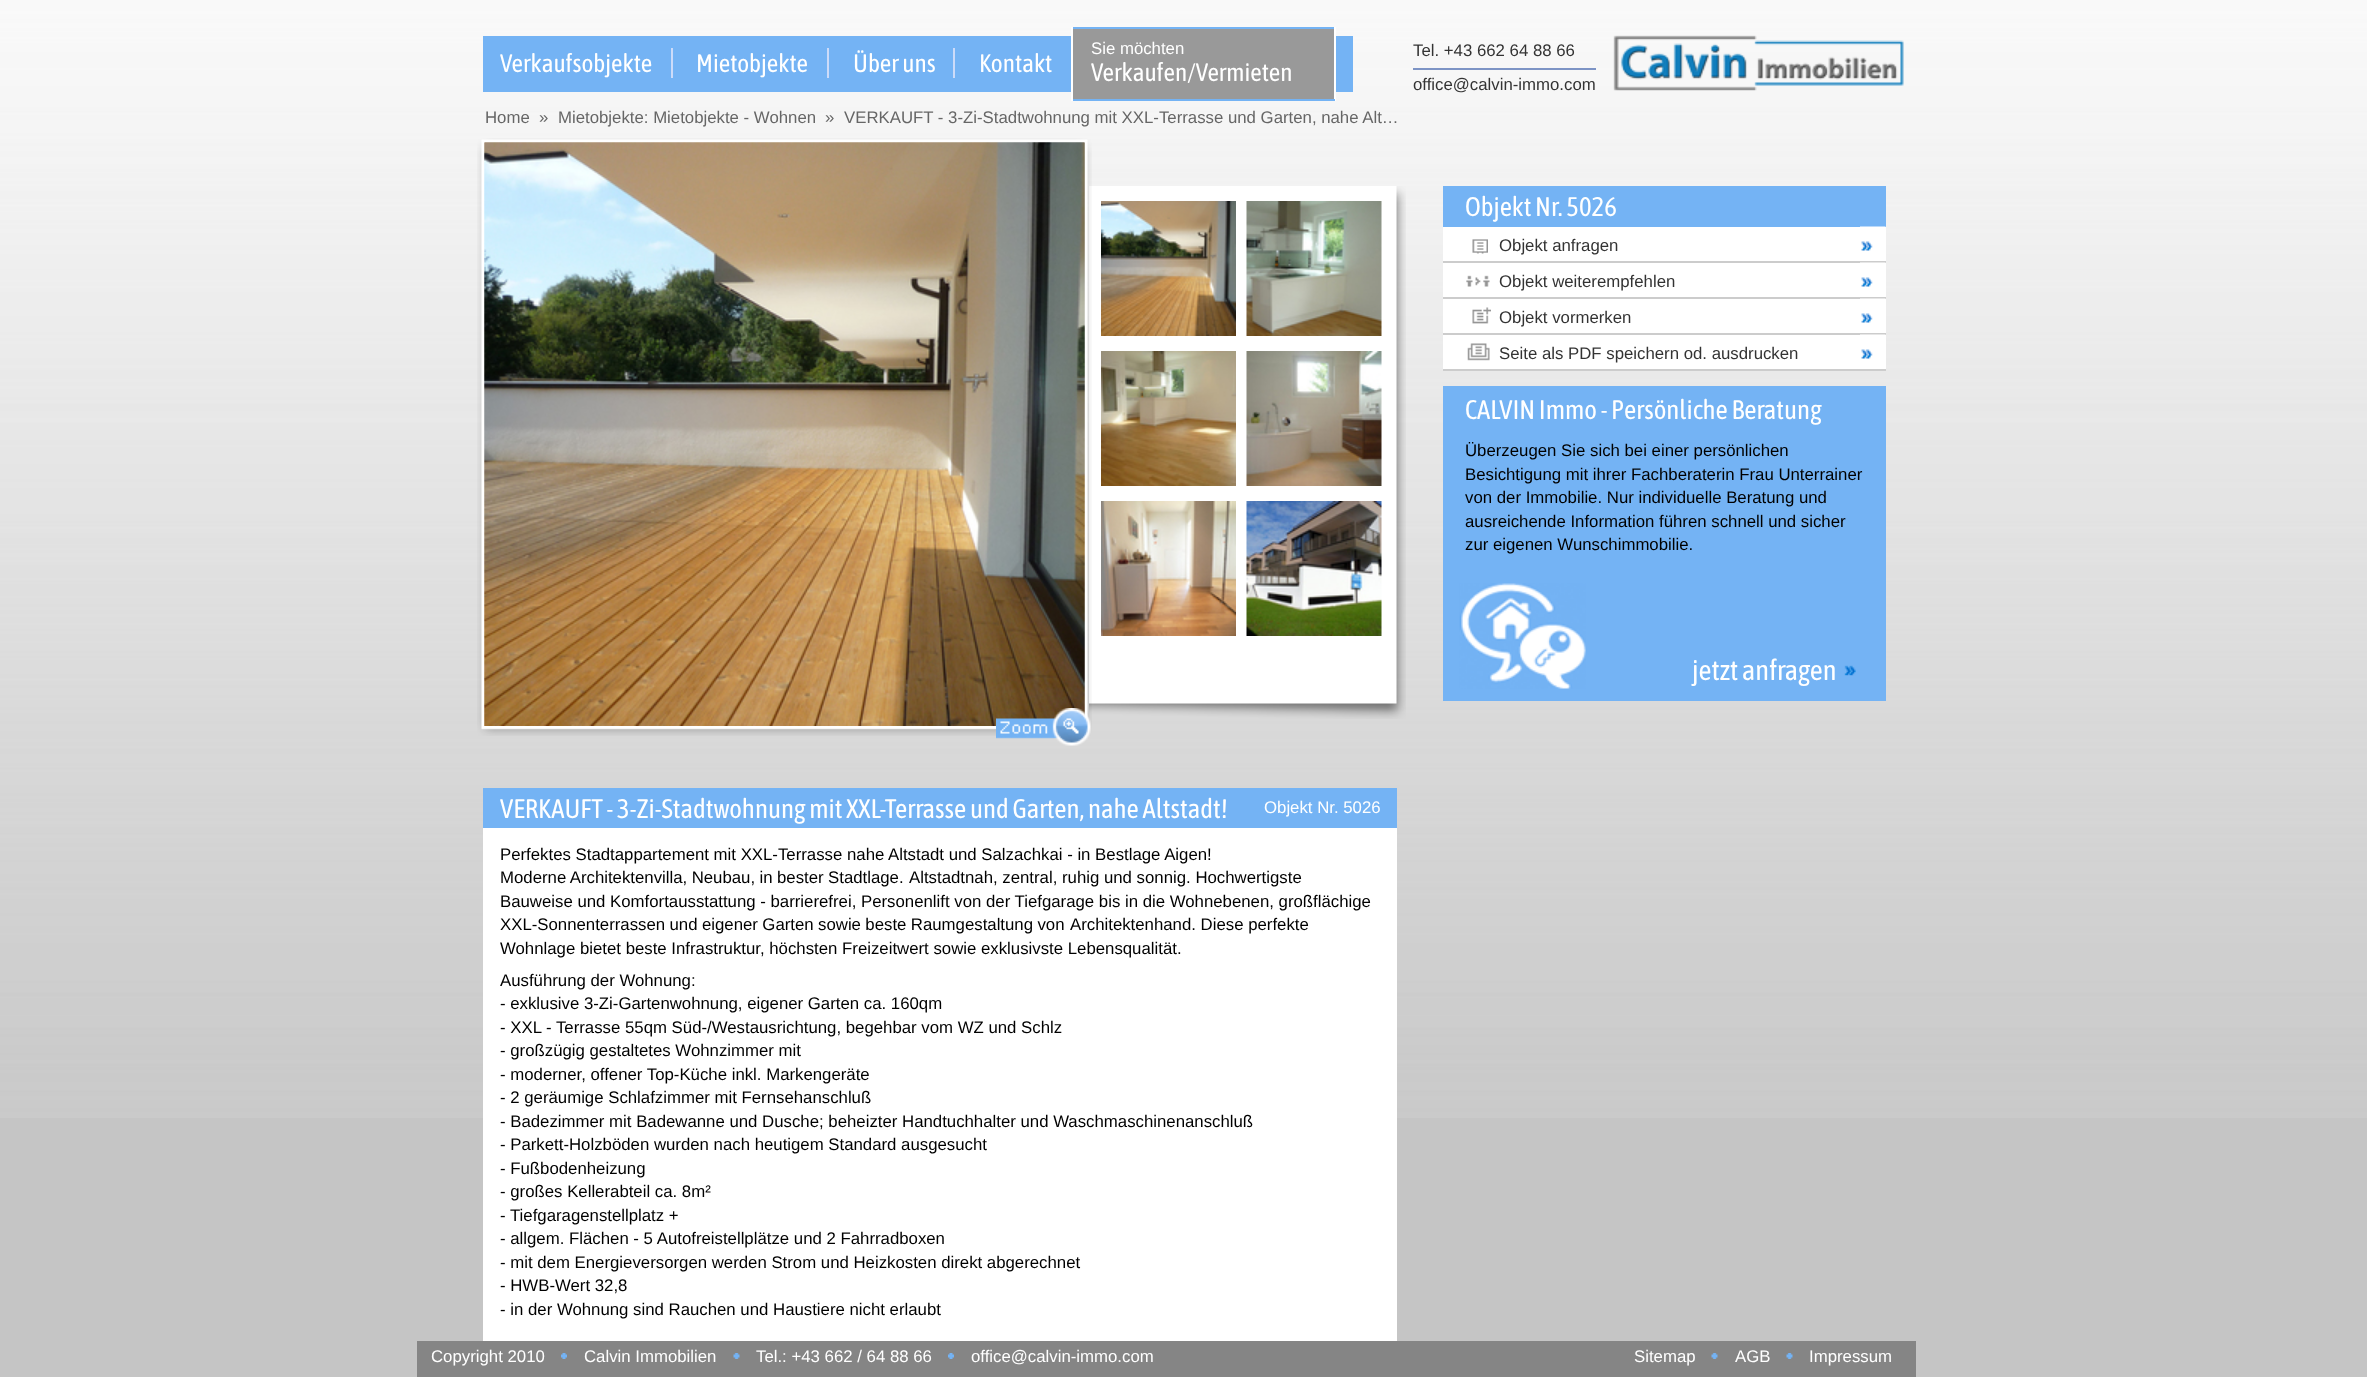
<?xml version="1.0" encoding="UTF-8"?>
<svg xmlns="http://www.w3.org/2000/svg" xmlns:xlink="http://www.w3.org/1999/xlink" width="2367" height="1377">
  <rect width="100%" height="100%" fill="#c5c5c5" />
  <image x="0" y="0" width="2367" height="1118" xlink:href="image1.png" />
  <rect x="483" y="36" width="870" height="56" fill="#74b3f4" />
  <rect x="671" y="48" width="2" height="30" fill="#ccdbf9" />
  <rect x="827" y="48" width="2" height="30" fill="#ccdbf9" />
  <rect x="953" y="48" width="2" height="30" fill="#ccdbf9" />
  <rect x="1073" y="29" width="261" height="70" fill="#999999" />
  <rect x="1071" y="27" width="264" height="2" fill="#74b3f4" />
  <rect x="1334" y="27" width="2" height="74" fill="#ffffff" />
  <rect x="1071" y="99" width="264" height="2" fill="#74b3f4" />
  <rect x="1071" y="27" width="2" height="74" fill="#ffffff" />
  <rect x="1413" y="68" width="183" height="2" fill="#7d94c5" />
  <image x="1613" y="35" width="291" height="56" xlink:href="image2.png" />
  <image x="1089" y="186" width="317" height="533" xlink:href="image6.png" />
  <image x="477" y="138" width="615" height="598" xlink:href="image3.png" />
  <image x="484" y="142" width="601" height="584" xlink:href="image4.png" />
  <image x="996" y="708" width="95" height="38" xlink:href="image5.png" />
  <image x="1101" y="201" width="135" height="135" xlink:href="image7.png" />
  <image x="1246" y="201" width="136" height="135" xlink:href="image8.png" />
  <image x="1101" y="351" width="135" height="135" xlink:href="image9.png" />
  <image x="1246" y="351" width="136" height="135" xlink:href="image10.png" />
  <image x="1101" y="501" width="135" height="135" xlink:href="image11.png" />
  <image x="1246" y="501" width="136" height="135" xlink:href="image12.png" />
  <rect x="1443" y="227" width="443" height="142" fill="#ffffff" />
  <rect x="1443" y="369" width="443" height="2" fill="#cccccc" />
  <rect x="1443" y="186" width="443" height="41" fill="#74b3f4" />
  <image x="1860" y="226" width="26" height="25" xlink:href="image13.png" />
  <rect x="1443" y="261" width="443" height="2" fill="#cccccc" />
  <image x="1472" y="239" width="16" height="15" xlink:href="image14.png" />
  <image x="1860" y="262" width="26" height="25" xlink:href="image15.png" />
  <rect x="1443" y="297" width="443" height="2" fill="#cccccc" />
  <image x="1466" y="275" width="24" height="12" xlink:href="image16.png" />
  <image x="1860" y="298" width="26" height="25" xlink:href="image15.png" />
  <rect x="1443" y="333" width="443" height="2" fill="#cccccc" />
  <image x="1472" y="307" width="19" height="17" xlink:href="image17.png" />
  <image x="1860" y="334" width="26" height="25" xlink:href="image15.png" />
  <image x="1467" y="343" width="23" height="18" xlink:href="image18.png" />
  <rect x="1443" y="386" width="443" height="315" fill="#74b3f4" />
  <image x="1459" y="583" width="127" height="106" xlink:href="image19.png" />
  <image x="1844" y="665" width="12" height="11" xlink:href="image20.png" />
  <rect x="483" y="828" width="914" height="513" fill="#ffffff" />
  <rect x="483" y="788" width="914" height="40" fill="#74b3f4" />
  <rect x="417" y="1341" width="1499" height="36" fill="#858585" />
  <image x="561" y="1353" width="6" height="6" xlink:href="image21.png" />
  <image x="733" y="1353" width="7" height="6" xlink:href="image22.png" />
  <image x="948" y="1353" width="6" height="6" xlink:href="image21.png" />
  <image x="1711" y="1353" width="7" height="6" xlink:href="image22.png" />
  <image x="1786" y="1353" width="7" height="6" xlink:href="image22.png" />
  <text x="500" y="72" style="font-family: Asap Condensed; font-size: 25.25px; fill: #ffffff">Verkaufsobjekte</text>
  <text x="696" y="72" style="font-family: Asap Condensed; font-size: 25.25px; fill: #ffffff">Mietobjekte</text>
  <text x="853" y="72" style="font-family: Asap Condensed; font-size: 25.25px; fill: #ffffff">Über uns</text>
  <text x="979" y="72" style="font-family: Asap Condensed; font-size: 25.25px; fill: #ffffff">Kontakt</text>
  <text x="1091" y="54" style="font-family: Liberation Sans; font-size: 16.8px; fill: #ffffff">Sie möchten</text>
  <text x="1091" y="81" style="font-family: Asap Condensed; font-size: 25.25px; fill: #ffffff">Verkaufen/Vermieten</text>
  <text x="1413" y="56" style="font-family: Liberation Sans; font-size: 16.8px; fill: #333333">Tel. +43 662 64 88 66</text>
  <text x="1413" y="90" style="font-family: Liberation Sans; font-size: 16.8px; fill: #333333">office@calvin-immo.com</text>
  <text x="485" y="123" style="font-family: Liberation Sans; font-size: 16.8px; fill: #666666">Home</text>
  <text x="539" y="123" style="font-family: Liberation Sans; font-size: 16.8px; fill: #666666">»</text>
  <text x="558" y="123" style="font-family: Liberation Sans; font-size: 16.8px; fill: #666666">Mietobjekte: Mietobjekte - Wohnen</text>
  <text x="825" y="123" style="font-family: Liberation Sans; font-size: 16.8px; fill: #666666">»</text>
  <text x="844" y="123" style="font-family: Liberation Sans; font-size: 16.8px; fill: #666666">VERKAUFT - 3-Zi-Stadtwohnung mit XXL-Terrasse und Garten, nahe Alt…</text>
  <text x="1465" y="216" style="font-family: Asap Condensed; font-size: 26.9px; fill: #ffffff">Objekt Nr. 5026</text>
  <text x="1499" y="251" style="font-family: Liberation Sans; font-size: 16.8px; fill: #333333">Objekt anfragen</text>
  <text x="1499" y="287" style="font-family: Liberation Sans; font-size: 16.8px; fill: #333333">Objekt weiterempfehlen</text>
  <text x="1499" y="323" style="font-family: Liberation Sans; font-size: 16.8px; fill: #333333">Objekt vormerken</text>
  <text x="1499" y="359" style="font-family: Liberation Sans; font-size: 16.8px; fill: #333333">Seite als PDF speichern od. ausdrucken</text>
  <text x="1465" y="419" style="font-family: Asap Condensed; font-size: 26.9px; fill: #ffffff">CALVIN Immo - Persönliche Beratung</text>
  <text x="1465" y="456" style="font-family: Liberation Sans; font-size: 16.8px; fill: #000000">Überzeugen Sie sich bei einer persönlichen</text>
  <text x="1465" y="480" style="font-family: Liberation Sans; font-size: 16.8px; fill: #000000">Besichtigung mit ihrer Fachberaterin Frau Unterrainer</text>
  <text x="1465" y="503" style="font-family: Liberation Sans; font-size: 16.8px; fill: #000000">von der Immobilie. Nur individuelle Beratung und</text>
  <text x="1465" y="527" style="font-family: Liberation Sans; font-size: 16.8px; fill: #000000">ausreichende Information führen schnell und sicher</text>
  <text x="1465" y="550" style="font-family: Liberation Sans; font-size: 16.8px; fill: #000000">zur eigenen Wunschimmobilie.</text>
  <text x="1692" y="680" style="font-family: Asap Condensed; font-size: 28.5px; fill: #ffffff">jetzt anfragen</text>
  <text x="500" y="818" style="font-family: Asap Condensed; font-size: 26.9px; fill: #ffffff">VERKAUFT - 3-Zi-Stadtwohnung mit XXL-Terrasse und Garten, nahe Altstadt!</text>
  <text x="1264" y="813" style="font-family: Liberation Sans; font-size: 16.8px; fill: #ffffff">Objekt Nr. 5026</text>
  <text x="500" y="860" style="font-family: Liberation Sans; font-size: 16.8px; fill: #000000">Perfektes Stadtappartement mit XXL-Terrasse nahe Altstadt und Salzachkai - in Bestlage Aigen!</text>
  <text x="500" y="883" word-spacing="-0.25" style="font-family: Liberation Sans; font-size: 16.8px; fill: #000000">Moderne Architektenvilla, Neubau, in bester Stadtlage.</text>
  <text x="909" y="883" style="font-family: Liberation Sans; font-size: 16.8px; fill: #000000">Altstadtnah, zentral, ruhig und sonnig. Hochwertigste</text>
  <text x="500" y="907" style="font-family: Liberation Sans; font-size: 16.8px; fill: #000000">Bauweise und Komfortausstattung - barrierefrei, Personenlift von der Tiefgarage bis in die Wohnebenen, großflächige</text>
  <text x="500" y="930" word-spacing="-0.25" style="font-family: Liberation Sans; font-size: 16.8px; fill: #000000">XXL-Sonnenterrassen und eigener Garten sowie beste Raumgestaltung von</text>
  <text x="1070" y="930" style="font-family: Liberation Sans; font-size: 16.8px; fill: #000000">Architektenhand. Diese perfekte</text>
  <text x="500" y="954" style="font-family: Liberation Sans; font-size: 16.8px; fill: #000000">Wohnlage bietet beste Infrastruktur, höchsten Freizeitwert sowie exklusivste Lebensqualität.</text>
  <text x="500" y="986" style="font-family: Liberation Sans; font-size: 16.8px; fill: #000000">Ausführung der Wohnung:</text>
  <text x="500" y="1009" style="font-family: Liberation Sans; font-size: 16.8px; fill: #000000">- exklusive 3-Zi-Gartenwohnung, eigener Garten ca. 160qm</text>
  <text x="500" y="1033" style="font-family: Liberation Sans; font-size: 16.8px; fill: #000000">- XXL - Terrasse 55qm Süd-/Westausrichtung, begehbar vom WZ und Schlz</text>
  <text x="500" y="1056" style="font-family: Liberation Sans; font-size: 16.8px; fill: #000000">- großzügig gestaltetes Wohnzimmer mit</text>
  <text x="500" y="1080" style="font-family: Liberation Sans; font-size: 16.8px; fill: #000000">- moderner, offener Top-Küche inkl. Markengeräte</text>
  <text x="500" y="1103" style="font-family: Liberation Sans; font-size: 16.8px; fill: #000000">- 2 geräumige Schlafzimmer mit Fernsehanschluß</text>
  <text x="500" y="1127" style="font-family: Liberation Sans; font-size: 16.8px; fill: #000000">- Badezimmer mit Badewanne und Dusche; beheizter Handtuchhalter und Waschmaschinenanschluß</text>
  <text x="500" y="1150" style="font-family: Liberation Sans; font-size: 16.8px; fill: #000000">- Parkett-Holzböden wurden nach heutigem Standard ausgesucht</text>
  <text x="500" y="1174" style="font-family: Liberation Sans; font-size: 16.8px; fill: #000000">- Fußbodenheizung</text>
  <text x="500" y="1197" style="font-family: Liberation Sans; font-size: 16.8px; fill: #000000">- großes Kellerabteil ca. 8m²</text>
  <text x="500" y="1221" style="font-family: Liberation Sans; font-size: 16.8px; fill: #000000">- Tiefgaragenstellplatz +</text>
  <text x="500" y="1244" style="font-family: Liberation Sans; font-size: 16.8px; fill: #000000">- allgem. Flächen - 5 Autofreistellplätze und 2 Fahrradboxen</text>
  <text x="500" y="1268" style="font-family: Liberation Sans; font-size: 16.8px; fill: #000000">- mit dem Energieversorgen werden Strom und Heizkosten direkt abgerechnet</text>
  <text x="500" y="1291" style="font-family: Liberation Sans; font-size: 16.8px; fill: #000000">- HWB-Wert 32,8</text>
  <text x="500" y="1315" style="font-family: Liberation Sans; font-size: 16.8px; fill: #000000">- in der Wohnung sind Rauchen und Haustiere nicht erlaubt</text>
  <text x="431" y="1362" style="font-family: Liberation Sans; font-size: 16.8px; fill: #ffffff">Copyright 2010</text>
  <text x="584" y="1362" style="font-family: Liberation Sans; font-size: 16.8px; fill: #ffffff">Calvin Immobilien</text>
  <text x="756" y="1362" style="font-family: Liberation Sans; font-size: 16.8px; fill: #ffffff">Tel.: +43 662 / 64 88 66</text>
  <text x="971" y="1362" style="font-family: Liberation Sans; font-size: 16.8px; fill: #ffffff">office@calvin-immo.com</text>
  <text x="1634" y="1362" style="font-family: Liberation Sans; font-size: 16.8px; fill: #ffffff">Sitemap</text>
  <text x="1735" y="1362" style="font-family: Liberation Sans; font-size: 16.8px; fill: #ffffff">AGB</text>
  <text x="1809" y="1362" style="font-family: Liberation Sans; font-size: 16.8px; fill: #ffffff">Impressum</text>
</svg>
